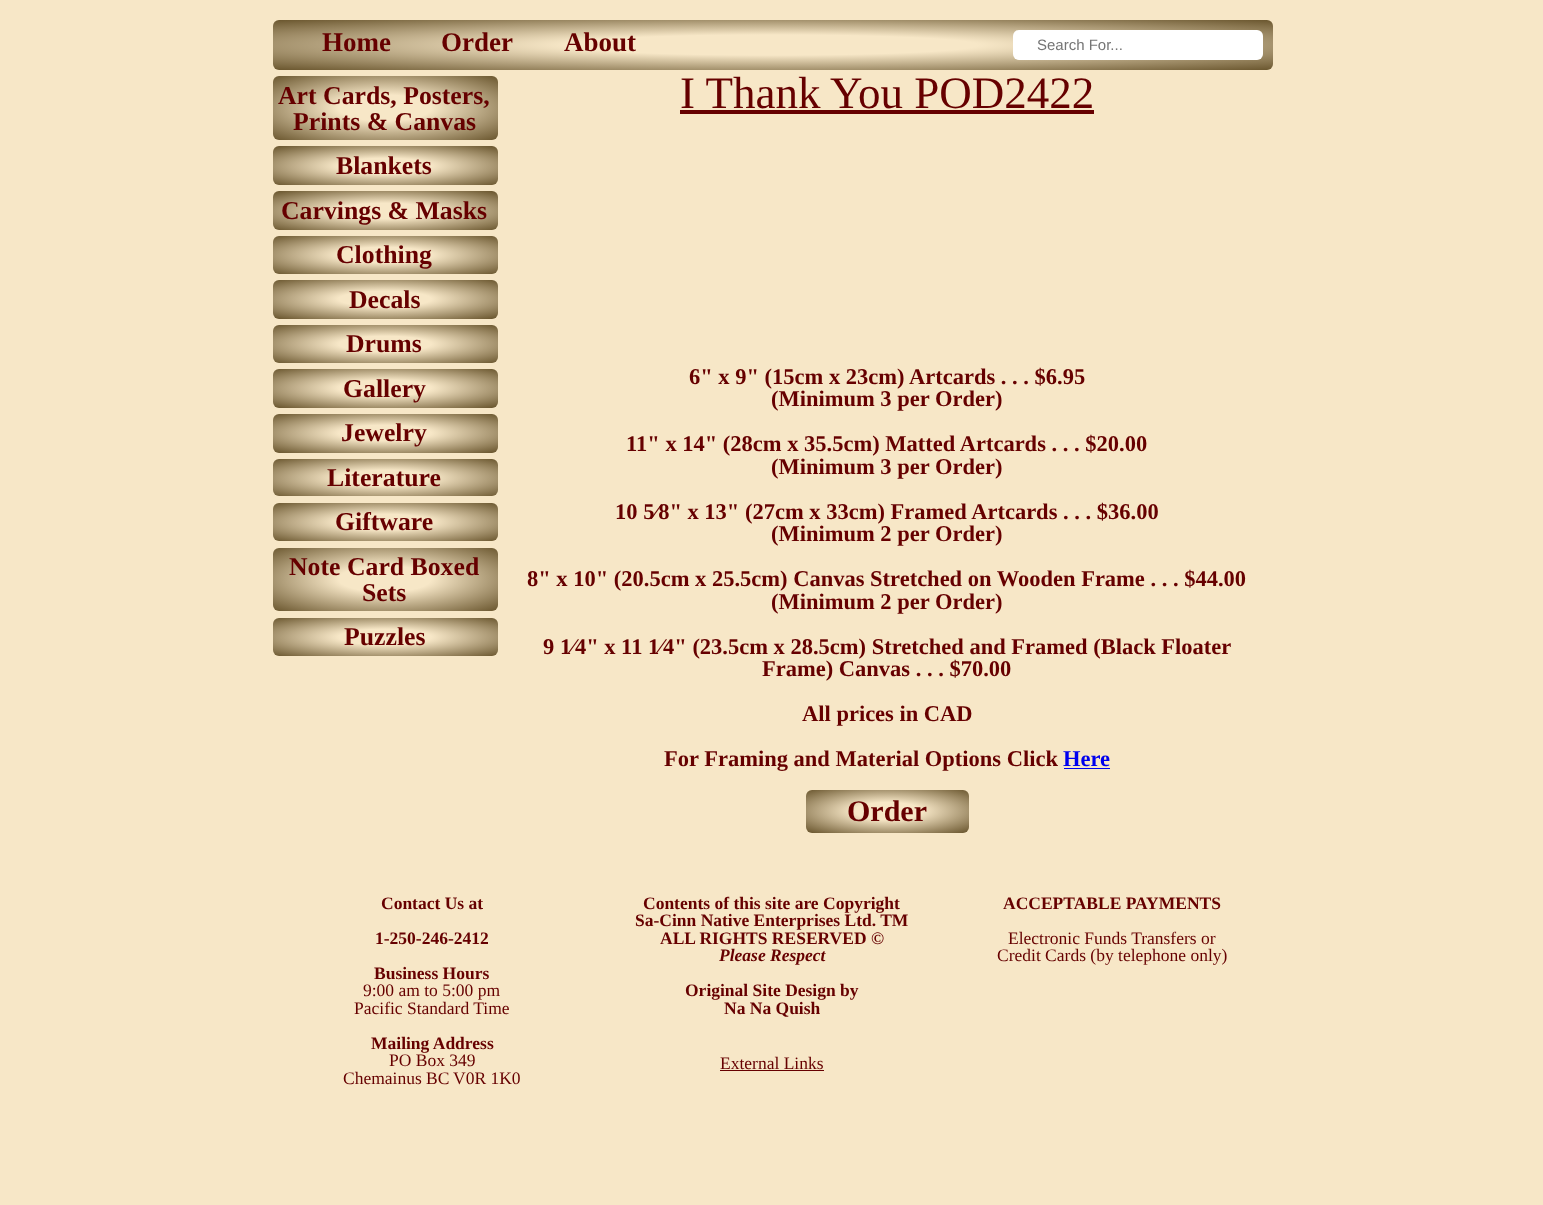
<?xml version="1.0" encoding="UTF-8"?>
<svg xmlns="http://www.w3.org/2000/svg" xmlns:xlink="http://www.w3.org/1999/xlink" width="1543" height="1205">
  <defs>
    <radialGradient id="g1" gradientUnits="userSpaceOnUse" cx="0" cy="0" r="1" gradientTransform="matrix(707 0 0 35 773 45)"><stop offset="0.29" stop-color="#f7e7c7" /><stop offset="1" stop-color="#6b572f" /></radialGradient>
    <radialGradient id="g2" gradientUnits="userSpaceOnUse" cx="0" cy="0" r="1" gradientTransform="matrix(159 0 0 45 385 108)"><stop offset="0.29" stop-color="#f7e7c7" /><stop offset="1" stop-color="#6b572f" /></radialGradient>
    <radialGradient id="g3" gradientUnits="userSpaceOnUse" cx="0" cy="0" r="1" gradientTransform="matrix(159 0 0 27 385 166)"><stop offset="0.29" stop-color="#f7e7c7" /><stop offset="1" stop-color="#6b572f" /></radialGradient>
    <radialGradient id="g4" gradientUnits="userSpaceOnUse" cx="0" cy="0" r="1" gradientTransform="matrix(159 0 0 27 385 211)"><stop offset="0.29" stop-color="#f7e7c7" /><stop offset="1" stop-color="#6b572f" /></radialGradient>
    <radialGradient id="g5" gradientUnits="userSpaceOnUse" cx="0" cy="0" r="1" gradientTransform="matrix(159 0 0 27 385 255)"><stop offset="0.29" stop-color="#f7e7c7" /><stop offset="1" stop-color="#6b572f" /></radialGradient>
    <radialGradient id="g6" gradientUnits="userSpaceOnUse" cx="0" cy="0" r="1" gradientTransform="matrix(159 0 0 27 385 299)"><stop offset="0.29" stop-color="#f7e7c7" /><stop offset="1" stop-color="#6b572f" /></radialGradient>
    <radialGradient id="g7" gradientUnits="userSpaceOnUse" cx="0" cy="0" r="1" gradientTransform="matrix(159 0 0 27 385 344)"><stop offset="0.29" stop-color="#f7e7c7" /><stop offset="1" stop-color="#6b572f" /></radialGradient>
    <radialGradient id="g8" gradientUnits="userSpaceOnUse" cx="0" cy="0" r="1" gradientTransform="matrix(159 0 0 27 385 388)"><stop offset="0.29" stop-color="#f7e7c7" /><stop offset="1" stop-color="#6b572f" /></radialGradient>
    <radialGradient id="g9" gradientUnits="userSpaceOnUse" cx="0" cy="0" r="1" gradientTransform="matrix(159 0 0 27 385 433)"><stop offset="0.29" stop-color="#f7e7c7" /><stop offset="1" stop-color="#6b572f" /></radialGradient>
    <radialGradient id="g10" gradientUnits="userSpaceOnUse" cx="0" cy="0" r="1" gradientTransform="matrix(159 0 0 27 385 478)"><stop offset="0.29" stop-color="#f7e7c7" /><stop offset="1" stop-color="#6b572f" /></radialGradient>
    <radialGradient id="g11" gradientUnits="userSpaceOnUse" cx="0" cy="0" r="1" gradientTransform="matrix(159 0 0 27 385 522)"><stop offset="0.29" stop-color="#f7e7c7" /><stop offset="1" stop-color="#6b572f" /></radialGradient>
    <radialGradient id="g12" gradientUnits="userSpaceOnUse" cx="0" cy="0" r="1" gradientTransform="matrix(159 0 0 45 385 579)"><stop offset="0.29" stop-color="#f7e7c7" /><stop offset="1" stop-color="#6b572f" /></radialGradient>
    <radialGradient id="g13" gradientUnits="userSpaceOnUse" cx="0" cy="0" r="1" gradientTransform="matrix(159 0 0 27 385 637)"><stop offset="0.29" stop-color="#f7e7c7" /><stop offset="1" stop-color="#6b572f" /></radialGradient>
    <radialGradient id="g14" gradientUnits="userSpaceOnUse" cx="0" cy="0" r="1" gradientTransform="matrix(115 0 0 30 888 811)"><stop offset="0.29" stop-color="#f7e7c7" /><stop offset="1" stop-color="#6b572f" /></radialGradient>
  </defs>
  <rect width="100%" height="100%" fill="#f7e7c7" />
  <rect x="273" y="20" width="1000" height="50" rx="6" fill="url(#g1)" />
  <rect x="1013" y="30" width="250" height="30" rx="6" fill="#ffffff" />
  <rect x="273" y="76" width="225" height="64" rx="6" fill="url(#g2)" />
  <rect x="273" y="146" width="225" height="39" rx="6" fill="url(#g3)" />
  <rect x="273" y="191" width="225" height="39" rx="6" fill="url(#g4)" />
  <rect x="273" y="236" width="225" height="38" rx="6" fill="url(#g5)" />
  <rect x="273" y="280" width="225" height="39" rx="6" fill="url(#g6)" />
  <rect x="273" y="325" width="225" height="38" rx="6" fill="url(#g7)" />
  <rect x="273" y="369" width="225" height="39" rx="6" fill="url(#g8)" />
  <rect x="273" y="414" width="225" height="39" rx="6" fill="url(#g9)" />
  <rect x="273" y="459" width="225" height="37" rx="6" fill="url(#g10)" />
  <rect x="273" y="503" width="225" height="38" rx="6" fill="url(#g11)" />
  <rect x="273" y="548" width="225" height="63" rx="6" fill="url(#g12)" />
  <rect x="273" y="618" width="225" height="38" rx="6" fill="url(#g13)" />
  <rect x="680" y="110" width="414" height="4" fill="#660000" />
  <rect x="1064" y="768" width="46" height="1" fill="#0000ee" />
  <rect x="806" y="790" width="163" height="43" rx="6" fill="url(#g14)" />
  <rect x="720" y="1070" width="104" height="1" fill="#660000" />
  <text x="322" y="51" style="font-family: Liberation Serif; font-size: 27px; font-weight: bold; fill: #660000">Home</text>
  <text x="441" y="51" style="font-family: Liberation Serif; font-size: 27px; font-weight: bold; fill: #660000">Order</text>
  <text x="564" y="51" style="font-family: Liberation Serif; font-size: 27px; font-weight: bold; fill: #660000">About</text>
  <text x="1037" y="50" style="font-family: Liberation Sans; font-size: 15px; fill: #757575">Search For...</text>
  <text x="278" y="104" style="font-family: Liberation Serif; font-size: 25.75px; font-weight: bold; fill: #660000">Art Cards, Posters,</text>
  <text x="293" y="130" style="font-family: Liberation Serif; font-size: 25.75px; font-weight: bold; fill: #660000">Prints &amp; Canvas</text>
  <text x="336" y="174" style="font-family: Liberation Serif; font-size: 25.75px; font-weight: bold; fill: #660000">Blankets</text>
  <text x="281" y="219" style="font-family: Liberation Serif; font-size: 25.75px; font-weight: bold; fill: #660000">Carvings &amp; Masks</text>
  <text x="336" y="263" style="font-family: Liberation Serif; font-size: 25.75px; font-weight: bold; fill: #660000">Clothing</text>
  <text x="349" y="308" style="font-family: Liberation Serif; font-size: 25.75px; font-weight: bold; fill: #660000">Decals</text>
  <text x="346" y="352" style="font-family: Liberation Serif; font-size: 25.75px; font-weight: bold; fill: #660000">Drums</text>
  <text x="343" y="397" style="font-family: Liberation Serif; font-size: 25.75px; font-weight: bold; fill: #660000">Gallery</text>
  <text x="341" y="441" style="font-family: Liberation Serif; font-size: 25.75px; font-weight: bold; fill: #660000">Jewelry</text>
  <text x="327" y="486" style="font-family: Liberation Serif; font-size: 25.75px; font-weight: bold; fill: #660000">Literature</text>
  <text x="335" y="530" style="font-family: Liberation Serif; font-size: 25.75px; font-weight: bold; fill: #660000">Giftware</text>
  <text x="289" y="575" style="font-family: Liberation Serif; font-size: 25.75px; font-weight: bold; fill: #660000">Note Card Boxed</text>
  <text x="362" y="601" style="font-family: Liberation Serif; font-size: 25.75px; font-weight: bold; fill: #660000">Sets</text>
  <text x="344" y="645" style="font-family: Liberation Serif; font-size: 25.75px; font-weight: bold; fill: #660000">Puzzles</text>
  <text x="680" y="108" style="font-family: Liberation Serif; font-size: 45px; fill: #660000">I Thank You POD2422</text>
  <text x="689" y="384" style="font-family: Liberation Serif; font-size: 22.5px; font-weight: bold; fill: #660000">6" x 9" (15cm x 23cm) Artcards . . . $6.95</text>
  <text x="771" y="406" style="font-family: Liberation Serif; font-size: 22.5px; font-weight: bold; fill: #660000">(Minimum 3 per Order)</text>
  <text x="626" y="451" style="font-family: Liberation Serif; font-size: 22.5px; font-weight: bold; fill: #660000">11" x 14" (28cm x 35.5cm) Matted Artcards . . . $20.00</text>
  <text x="771" y="474" style="font-family: Liberation Serif; font-size: 22.5px; font-weight: bold; fill: #660000">(Minimum 3 per Order)</text>
  <text x="615" y="519" style="font-family: Liberation Serif; font-size: 22.5px; font-weight: bold; fill: #660000">10 5⁄8" x 13" (27cm x 33cm) Framed Artcards . . . $36.00</text>
  <text x="771" y="541" style="font-family: Liberation Serif; font-size: 22.5px; font-weight: bold; fill: #660000">(Minimum 2 per Order)</text>
  <text x="527" y="586" style="font-family: Liberation Serif; font-size: 22.5px; font-weight: bold; fill: #660000">8" x 10" (20.5cm x 25.5cm) Canvas Stretched on Wooden Frame . . . $44.00</text>
  <text x="771" y="609" style="font-family: Liberation Serif; font-size: 22.5px; font-weight: bold; fill: #660000">(Minimum 2 per Order)</text>
  <text x="543" y="654" style="font-family: Liberation Serif; font-size: 22.5px; font-weight: bold; fill: #660000">9 1⁄4" x 11 1⁄4" (23.5cm x 28.5cm) Stretched and Framed (Black Floater</text>
  <text x="762" y="676" style="font-family: Liberation Serif; font-size: 22.5px; font-weight: bold; fill: #660000">Frame) Canvas . . . $70.00</text>
  <text x="802" y="721" style="font-family: Liberation Serif; font-size: 22.5px; font-weight: bold; fill: #660000">All prices in CAD</text>
  <text x="664" y="766" style="font-family: Liberation Serif; font-size: 22.5px; font-weight: bold; fill: #660000">For Framing and Material Options Click</text>
  <text x="1063" y="766" style="font-family: Liberation Serif; font-size: 22.5px; font-weight: bold; fill: #0000ee">Here</text>
  <text x="847" y="821" style="font-family: Liberation Serif; font-size: 30px; font-weight: bold; fill: #660000">Order</text>
  <text x="381" y="909" style="font-family: Liberation Serif; font-size: 17.5px; font-weight: bold; fill: #660000">Contact Us at</text>
  <text x="375" y="944" style="font-family: Liberation Serif; font-size: 17.5px; font-weight: bold; fill: #660000">1-250-246-2412</text>
  <text x="374" y="979" style="font-family: Liberation Serif; font-size: 17.5px; font-weight: bold; fill: #660000">Business Hours</text>
  <text x="363" y="996" style="font-family: Liberation Serif; font-size: 17.5px; fill: #660000">9:00 am to 5:00 pm</text>
  <text x="354" y="1014" style="font-family: Liberation Serif; font-size: 17.5px; fill: #660000">Pacific Standard Time</text>
  <text x="371" y="1049" style="font-family: Liberation Serif; font-size: 17.5px; font-weight: bold; fill: #660000">Mailing Address</text>
  <text x="389" y="1066" style="font-family: Liberation Serif; font-size: 17.5px; fill: #660000">PO Box 349</text>
  <text x="343" y="1084" style="font-family: Liberation Serif; font-size: 17.5px; fill: #660000">Chemainus BC</text>
  <text x="453" y="1084" style="font-family: Liberation Serif; font-size: 17.5px; fill: #660000">V0R 1K0</text>
  <text x="643" y="909" style="font-family: Liberation Serif; font-size: 17.5px; font-weight: bold; fill: #660000">Contents of this site are Copyright</text>
  <text x="635" y="926" style="font-family: Liberation Serif; font-size: 17.5px; font-weight: bold; fill: #660000">Sa-Cinn Native Enterprises Ltd. TM</text>
  <text x="660" y="944" style="font-family: Liberation Serif; font-size: 17.5px; font-weight: bold; fill: #660000">ALL RIGHTS RESERVED ©</text>
  <text x="719" y="961" style="font-family: Liberation Serif; font-size: 17.5px; font-weight: bold; font-style: italic; fill: #660000">Please Respect</text>
  <text x="685" y="996" style="font-family: Liberation Serif; font-size: 17.5px; font-weight: bold; fill: #660000">Original Site Design by</text>
  <text x="724" y="1014" style="font-family: Liberation Serif; font-size: 17.5px; font-weight: bold; fill: #660000">Na Na Quish</text>
  <text x="720" y="1069" style="font-family: Liberation Serif; font-size: 17.5px; fill: #660000">External Links</text>
  <text x="1003" y="909" style="font-family: Liberation Serif; font-size: 17.5px; font-weight: bold; fill: #660000">ACCEPTABLE PAYMENTS</text>
  <text x="1008" y="944" style="font-family: Liberation Serif; font-size: 17.5px; fill: #660000">Electronic Funds Transfers or</text>
  <text x="997" y="961" style="font-family: Liberation Serif; font-size: 17.5px; fill: #660000">Credit Cards (by telephone only)</text>
</svg>
